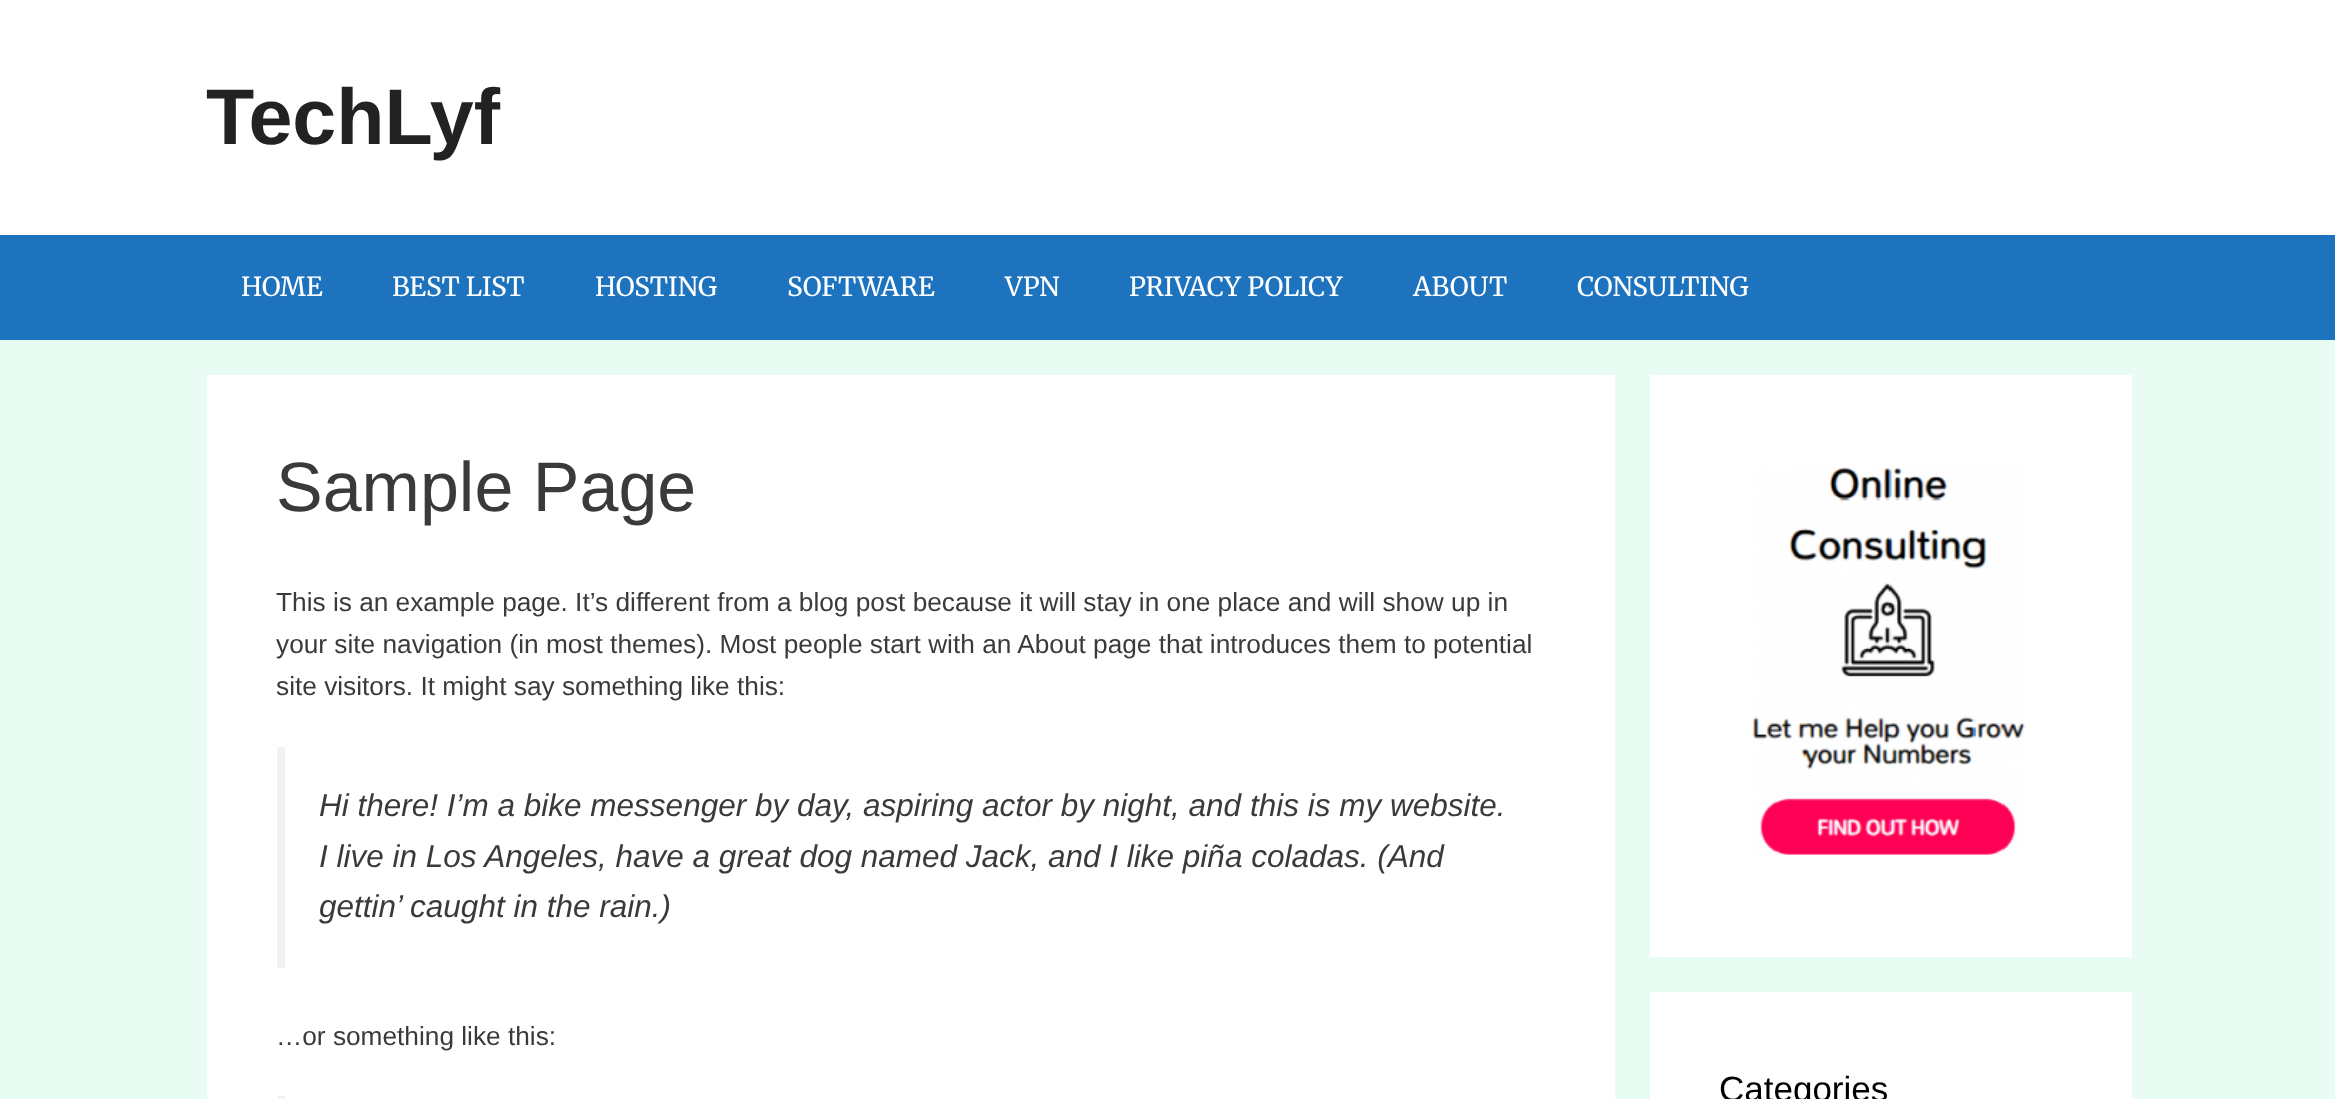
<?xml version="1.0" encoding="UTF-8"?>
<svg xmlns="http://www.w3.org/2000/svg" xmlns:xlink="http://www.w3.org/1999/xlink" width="2335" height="1099">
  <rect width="100%" height="100%" fill="#e8fcf4" />
  <rect width="2335" height="235" fill="#ffffff" />
  <rect y="235" width="2335" height="105" fill="#1e73be" />
  <rect x="207" y="375" width="1408" height="724" fill="#ffffff" />
  <rect x="277" y="747" width="8" height="221" fill="#f2f2f2" />
  <rect x="277" y="1096" width="8" height="3" fill="#f2f2f2" />
  <rect x="1650" y="375" width="482" height="582" fill="#ffffff" />
  <image x="1752" y="467" width="273" height="388" xlink:href="image1.png" />
  <rect x="1650" y="992" width="482" height="107" fill="#ffffff" />
  <text x="206" y="144" style="font-family: Liberation Sans; font-size: 79px; font-weight: bold; fill: #222222">TechLyf</text>
  <text x="241" y="296" style="font-family: Merriweather; font-size: 26.25px; fill: #ffffff">HOME</text>
  <text x="392" y="296" style="font-family: Merriweather; font-size: 26.25px; fill: #ffffff">BEST LIST</text>
  <text x="595" y="296" style="font-family: Merriweather; font-size: 26.25px; fill: #ffffff">HOSTING</text>
  <text x="787" y="296" style="font-family: Merriweather; font-size: 26.25px; fill: #ffffff">SOFTWARE</text>
  <text x="1005" y="296" style="font-family: Merriweather; font-size: 26.25px; fill: #ffffff">VPN</text>
  <text x="1129" y="296" style="font-family: Merriweather; font-size: 26.25px; fill: #ffffff">PRIVACY POLICY</text>
  <text x="1413" y="296" style="font-family: Merriweather; font-size: 26.25px; fill: #ffffff">ABOUT</text>
  <text x="1577" y="296" style="font-family: Merriweather; font-size: 26.25px; fill: #ffffff">CONSULTING</text>
  <text x="276" y="511" style="font-family: Liberation Sans; font-size: 70px; fill: #3a3a3a">Sample Page</text>
  <text x="276" y="611" style="font-family: Liberation Sans; font-size: 26.25px; fill: #3a3a3a">This is an example page. It’s different from a blog post because it will stay in one place and will show up in</text>
  <text x="276" y="653" style="font-family: Liberation Sans; font-size: 26.25px; fill: #3a3a3a">your site navigation (in most themes). Most people start with an About page that introduces them to potential</text>
  <text x="276" y="695" style="font-family: Liberation Sans; font-size: 26.25px; fill: #3a3a3a">site visitors. It might say something like this:</text>
  <text x="319" y="816" style="font-family: Liberation Sans; font-size: 31.5px; font-style: italic; fill: #3a3a3a">Hi there! I’m a bike messenger by day, aspiring actor by night, and this is my website.</text>
  <text x="319" y="867" style="font-family: Liberation Sans; font-size: 31.5px; font-style: italic; fill: #3a3a3a">I live in Los Angeles, have a great dog named Jack, and I like piña coladas. (And</text>
  <text x="319" y="917" style="font-family: Liberation Sans; font-size: 31.5px; font-style: italic; fill: #3a3a3a">gettin’ caught in the rain.)</text>
  <text x="276" y="1045" style="font-family: Liberation Sans; font-size: 26.25px; fill: #3a3a3a">…or something like this:</text>
  <text x="1719" y="1101" style="font-family: Liberation Sans; font-size: 35px; fill: #000000">Categories</text>
</svg>
